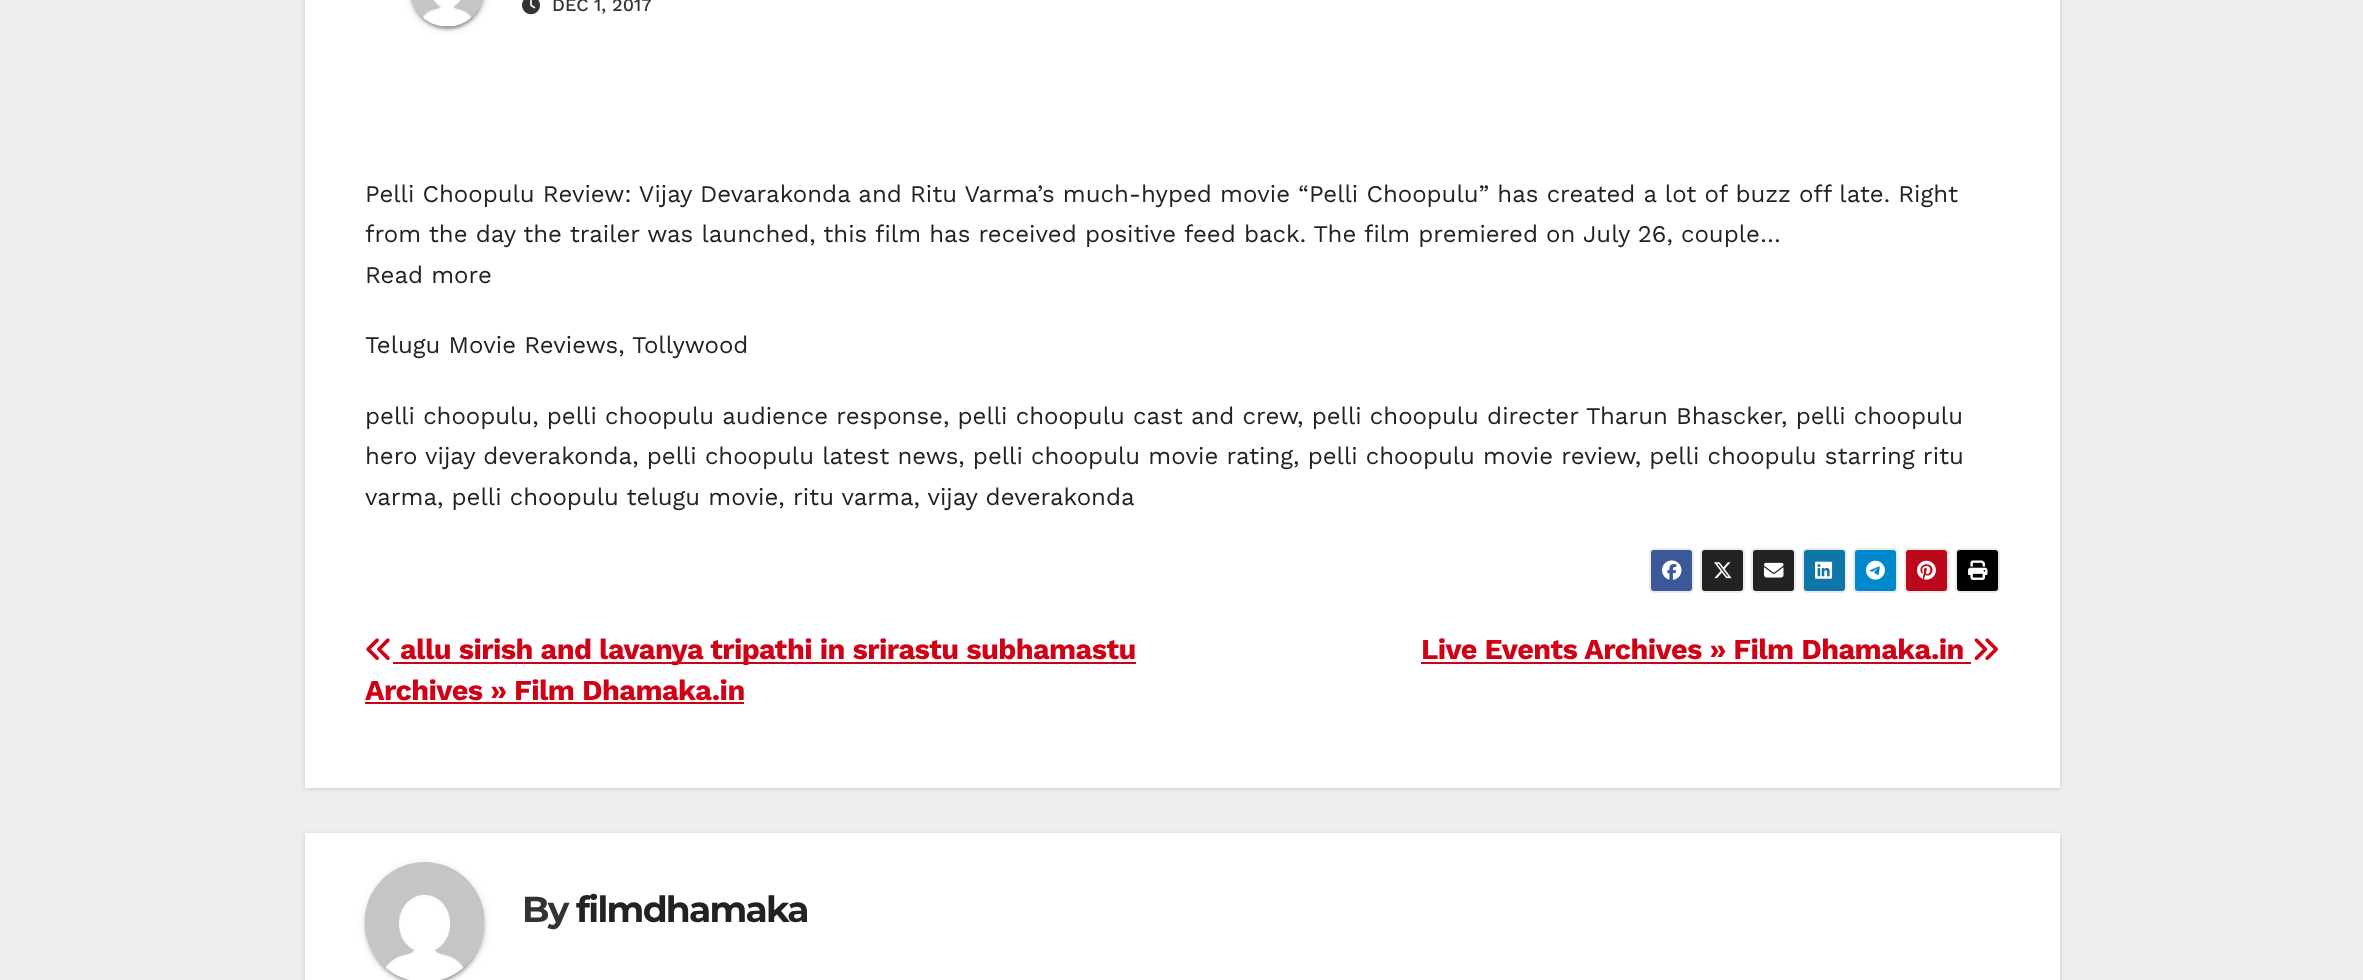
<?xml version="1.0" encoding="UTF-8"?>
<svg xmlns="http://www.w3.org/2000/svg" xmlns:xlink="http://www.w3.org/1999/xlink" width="2363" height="980">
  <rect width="100%" height="100%" fill="#eeeeee" />
  <rect x="305" y="-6" width="1755" height="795" fill="#000000" fill-opacity="0.15" filter="blur(2px)" />
  <rect x="305" width="1755" height="788" fill="#ffffff" />
  <rect x="410" y="-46" width="75" height="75" rx="37.5" fill="#000000" fill-opacity="0.12" filter="blur(4px)" />
  <rect x="413" y="-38" width="69" height="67" rx="34.5" fill="#000000" fill-opacity="0.2" filter="blur(1px)" />
  <rect x="410" y="-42" width="75" height="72" rx="37.5" fill="#000000" fill-opacity="0.14" filter="blur(1.5px)" />
  <image x="411" y="0" width="72" height="26" xlink:href="image1.png" />
  <image x="522" y="0" width="18" height="15" xlink:href="image2.png" />
  <rect x="1650" y="549" width="43" height="43" rx="4" fill="#3b5998" stroke="#ebebeb" stroke-width="2" />
  <image x="1662" y="560" width="20" height="20" xlink:href="image3.png" />
  <rect x="1701" y="549" width="43" height="43" rx="4" fill="#222222" stroke="#ebebeb" stroke-width="2" />
  <image x="1714" y="562" width="18" height="17" xlink:href="image4.png" />
  <rect x="1752" y="549" width="43" height="43" rx="4" fill="#222222" stroke="#ebebeb" stroke-width="2" />
  <image x="1764" y="562" width="20" height="16" xlink:href="image5.png" />
  <rect x="1803" y="549" width="43" height="43" rx="4" fill="#0e76a8" stroke="#ebebeb" stroke-width="2" />
  <image x="1815" y="561" width="18" height="18" xlink:href="image6.png" />
  <rect x="1854" y="549" width="43" height="43" rx="4" fill="#0088cc" stroke="#ebebeb" stroke-width="2" />
  <image x="1866" y="560" width="19" height="20" xlink:href="image7.png" />
  <rect x="1905" y="549" width="43" height="43" rx="4" fill="#bd081c" stroke="#ebebeb" stroke-width="2" />
  <image x="1917" y="560" width="19" height="20" xlink:href="image8.png" />
  <rect x="1956" y="549" width="43" height="43" rx="4" fill="#000000" stroke="#ebebeb" stroke-width="2" />
  <image x="1968" y="560" width="20" height="20" xlink:href="image9.png" />
  <image x="366" y="638" width="24" height="22" xlink:href="image10.png" />
  <rect x="393" y="662" width="743" height="2" fill="#d10014" />
  <rect x="365" y="702" width="379" height="2" fill="#d10014" />
  <rect x="1421" y="662" width="550" height="2" fill="#d10014" />
  <image x="1974" y="638" width="24" height="22" xlink:href="image11.png" />
  <rect x="305" y="834" width="1755" height="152" fill="#000000" fill-opacity="0.15" filter="blur(2px)" />
  <rect x="305" y="833" width="1755" height="147" fill="#ffffff" />
  <rect x="365" y="864" width="120" height="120" rx="60" fill="#000000" fill-opacity="0.12" filter="blur(4px)" />
  <rect x="368" y="870" width="114" height="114" rx="57" fill="#000000" fill-opacity="0.2" filter="blur(1px)" />
  <rect x="365" y="866" width="120" height="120" rx="60" fill="#000000" fill-opacity="0.14" filter="blur(1.5px)" />
  <image x="364" y="862" width="121" height="118" xlink:href="image12.png" />
  <text x="552" y="11" style="font-family: Work Sans; font-size: 18px; font-weight: 500; fill: #333333">DEC 1, 2017</text>
  <text x="365" y="202" style="font-family: Work Sans; font-size: 24px; fill: #222222">Pelli Choopulu Review: Vijay Devarakonda and Ritu Varma’s much-hyped movie “Pelli Choopulu” has created a lot of buzz off late. Right</text>
  <text x="365" y="242" style="font-family: Work Sans; font-size: 24px; fill: #222222">from the day the trailer was launched, this film has received positive feed back. The film premiered on July 26, couple…</text>
  <text x="365" y="283" style="font-family: Work Sans; font-size: 24px; fill: #222222">Read more</text>
  <text x="365" y="353" style="font-family: Work Sans; font-size: 24px; fill: #222222">Telugu Movie Reviews, Tollywood</text>
  <text x="365" y="424" style="font-family: Work Sans; font-size: 24px; fill: #222222">pelli choopulu, pelli choopulu audience response, pelli choopulu cast and crew, pelli choopulu directer Tharun Bhascker, pelli choopulu</text>
  <text x="365" y="464" style="font-family: Work Sans; font-size: 24px; fill: #222222">hero vijay deverakonda, pelli choopulu latest news, pelli choopulu movie rating, pelli choopulu movie review, pelli choopulu starring ritu</text>
  <text x="365" y="505" style="font-family: Work Sans; font-size: 24px; fill: #222222">varma, pelli choopulu telugu movie, ritu varma, vijay deverakonda</text>
  <text x="400" y="659" style="font-family: Work Sans; font-size: 28.8px; font-weight: bold; letter-spacing: -0.58px; fill: #d10014">allu sirish and lavanya tripathi in srirastu subhamastu</text>
  <text x="365" y="700" style="font-family: Work Sans; font-size: 28.8px; font-weight: bold; letter-spacing: -0.58px; fill: #d10014">Archives » Film Dhamaka.in</text>
  <text x="1421" y="659" style="font-family: Work Sans; font-size: 28.8px; font-weight: bold; letter-spacing: -0.58px; fill: #d10014">Live Events Archives » Film Dhamaka.in</text>
  <text x="522" y="922" style="font-family: Montserrat; font-size: 36px; font-weight: bold; letter-spacing: -1.75px; fill: #333333">By</text>
  <text x="576" y="922" style="font-family: Montserrat; font-size: 36px; font-weight: bold; letter-spacing: -1.75px; fill: #222222">filmdhamaka</text>
</svg>
